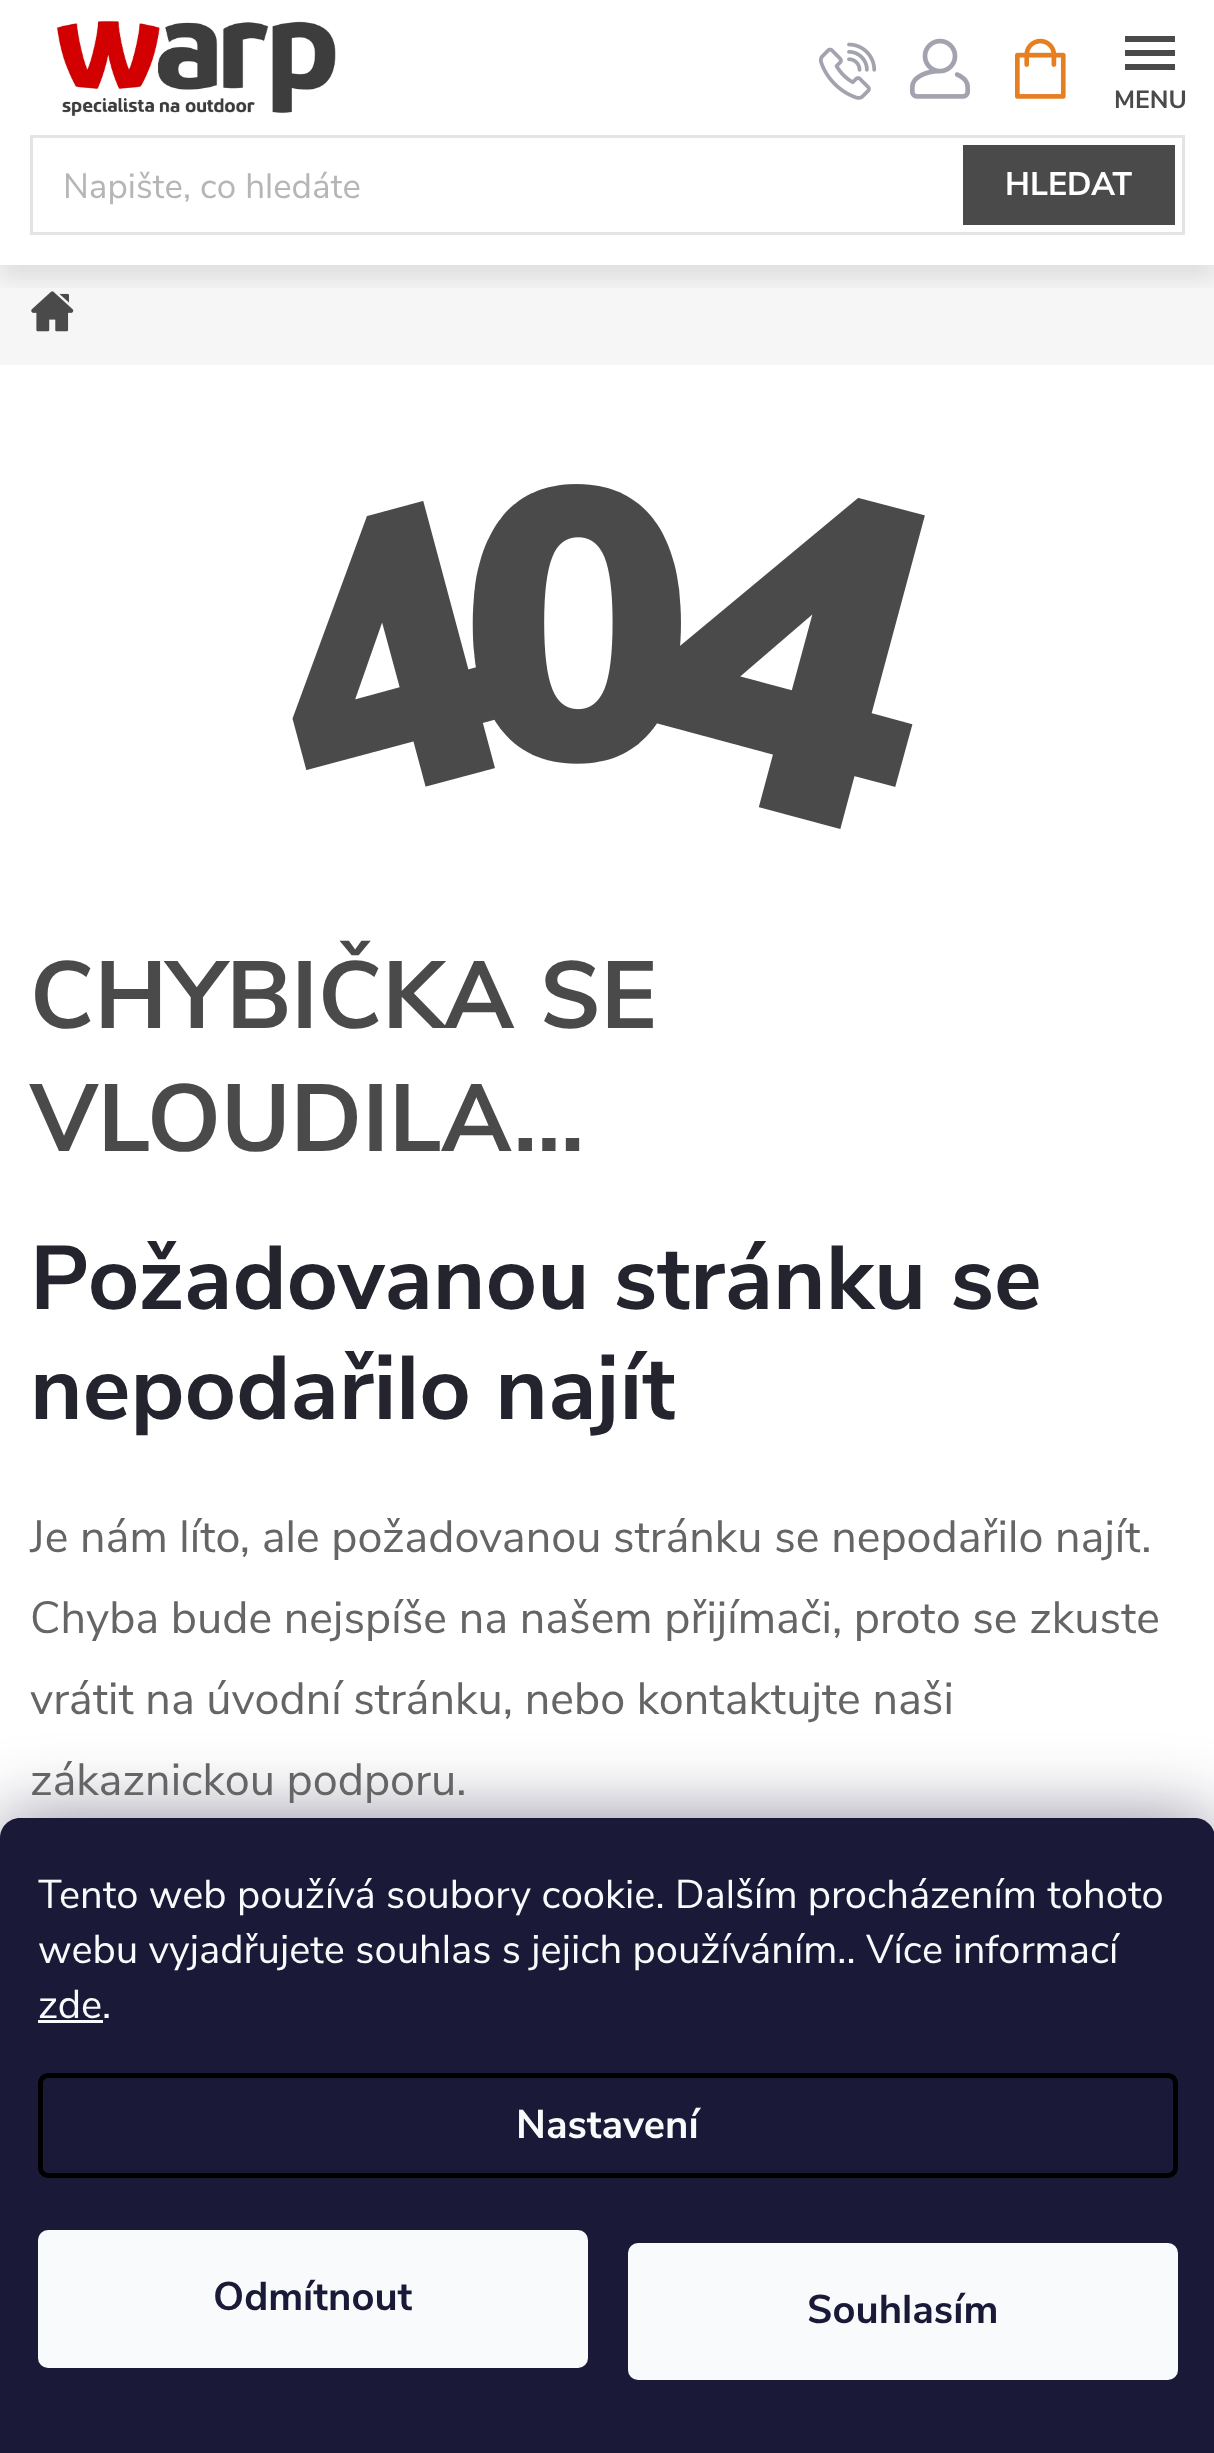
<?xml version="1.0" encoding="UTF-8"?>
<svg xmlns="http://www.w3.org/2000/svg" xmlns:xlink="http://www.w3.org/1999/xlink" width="1214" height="2453">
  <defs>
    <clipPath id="clip1"><rect x="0" y="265" width="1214" height="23" /></clipPath>
  </defs>
  <rect width="100%" height="100%" fill="#ffffff" />
  <image x="818" y="42" width="59" height="58" xlink:href="image1.png" />
  <image x="910" y="38" width="60" height="61" xlink:href="image2.png" />
  <path d="M 1125 70 h 50 v -6 h -50 z m 0 -14 h 50 v -6 h -50 z m 0 -20 v 6 h 50 v -6 z" fill="#4a4a4a" />
  <rect y="265" width="1214" height="100" fill="#f6f6f6" />
  <image x="31" y="291" width="43" height="41" xlink:href="image5.png" />
  <g clip-path="url(#clip1)">
    <rect y="150" width="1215" height="130" fill="#24242e" fill-opacity="0.1" filter="blur(10px)" />
  </g>
  <image x="56" y="20" width="280" height="96" xlink:href="image3.png" />
  <image x="1015" y="38" width="51" height="61" xlink:href="image4.png" />
  <rect x="31.5" y="136.5" width="1152" height="97" fill="none" stroke="#e4e4e4" stroke-width="3" />
  <rect x="963" y="145" width="212" height="80" fill="#4a4a4a" />
  <image x="292" y="484" width="633" height="345" xlink:href="image6.png" />
  <rect y="1818" width="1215" height="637" rx="20" fill="#1b1939" fill-opacity="0.5" filter="blur(37.5px)" />
  <path d="M 20 1818 h 1175 c 11 0 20 9 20 20 v 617 h -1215 v -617 c 0 -11 9 -20 20 -20 z" fill="#1a1937" />
  <rect x="38" y="2020" width="65" height="3" fill="#f8fafb" />
  <rect x="40.5" y="2075.5" width="1135" height="100" rx="7.5" fill="none" stroke="#000000" stroke-width="5" />
  <rect x="38" y="2230" width="550" height="138" rx="10" fill="#f8fafb" />
  <rect x="628" y="2243" width="550" height="137" rx="10" fill="#f8fafb" />
  <text x="1114" y="108" style="font-family: Nunito Sans; font-size: 25px; font-weight: bold; fill: #4a4a4a">MENU</text>
  <text x="63" y="198" style="font-family: Nunito Sans; font-size: 35px; fill: #b6b6b6">Napište, co hledáte</text>
  <text x="1005" y="195" style="font-family: Nunito Sans; font-size: 32.5px; font-weight: bold; fill: #ffffff">HLEDAT</text>
  <text x="30" y="1028" style="font-family: Nunito Sans; font-size: 95px; font-weight: bold; fill: #4a4a4a">CHYBIČKA SE</text>
  <text x="30" y="1151" style="font-family: Nunito Sans; font-size: 95px; font-weight: bold; fill: #4a4a4a">VLOUDILA…</text>
  <text x="30" y="1309" style="font-family: Nunito Sans; font-size: 90px; font-weight: bold; fill: #24242e">Požadovanou stránku se</text>
  <text x="30" y="1419" style="font-family: Nunito Sans; font-size: 90px; font-weight: bold; fill: #24242e">nepodařilo najít</text>
  <text x="30" y="1552" style="font-family: Nunito Sans; font-size: 45px; fill: #656565">Je nám líto, ale požadovanou stránku se nepodařilo najít.</text>
  <text x="30" y="1633" style="font-family: Nunito Sans; font-size: 45px; fill: #656565">Chyba bude nejspíše na našem přijímači, proto se zkuste</text>
  <text x="30" y="1714" style="font-family: Nunito Sans; font-size: 45px; fill: #656565">vrátit na úvodní stránku, nebo kontaktujte naši</text>
  <text x="30" y="1795" style="font-family: Nunito Sans; font-size: 45px; fill: #656565">zákaznickou podporu.</text>
  <text x="38" y="1908" style="font-family: Nunito Sans; font-size: 40px; fill: #f8fafb">Tento web používá soubory cookie. Dalším procházením tohoto</text>
  <text x="38" y="1963" style="font-family: Nunito Sans; font-size: 40px; fill: #f8fafb">webu vyjadřujete souhlas s jejich používáním.. Více informací</text>
  <text x="38" y="2018" style="font-family: Nunito Sans; font-size: 40px; fill: #f8fafb">zde.</text>
  <text x="516" y="2138" style="font-family: Nunito Sans; font-size: 40px; font-weight: bold; fill: #f8fafb">Nastavení</text>
  <text x="213" y="2310" style="font-family: Nunito Sans; font-size: 40px; font-weight: bold; fill: #1a1937">Odmítnout</text>
  <text x="807" y="2323" style="font-family: Nunito Sans; font-size: 40px; font-weight: bold; fill: #1a1937">Souhlasím</text>
</svg>
